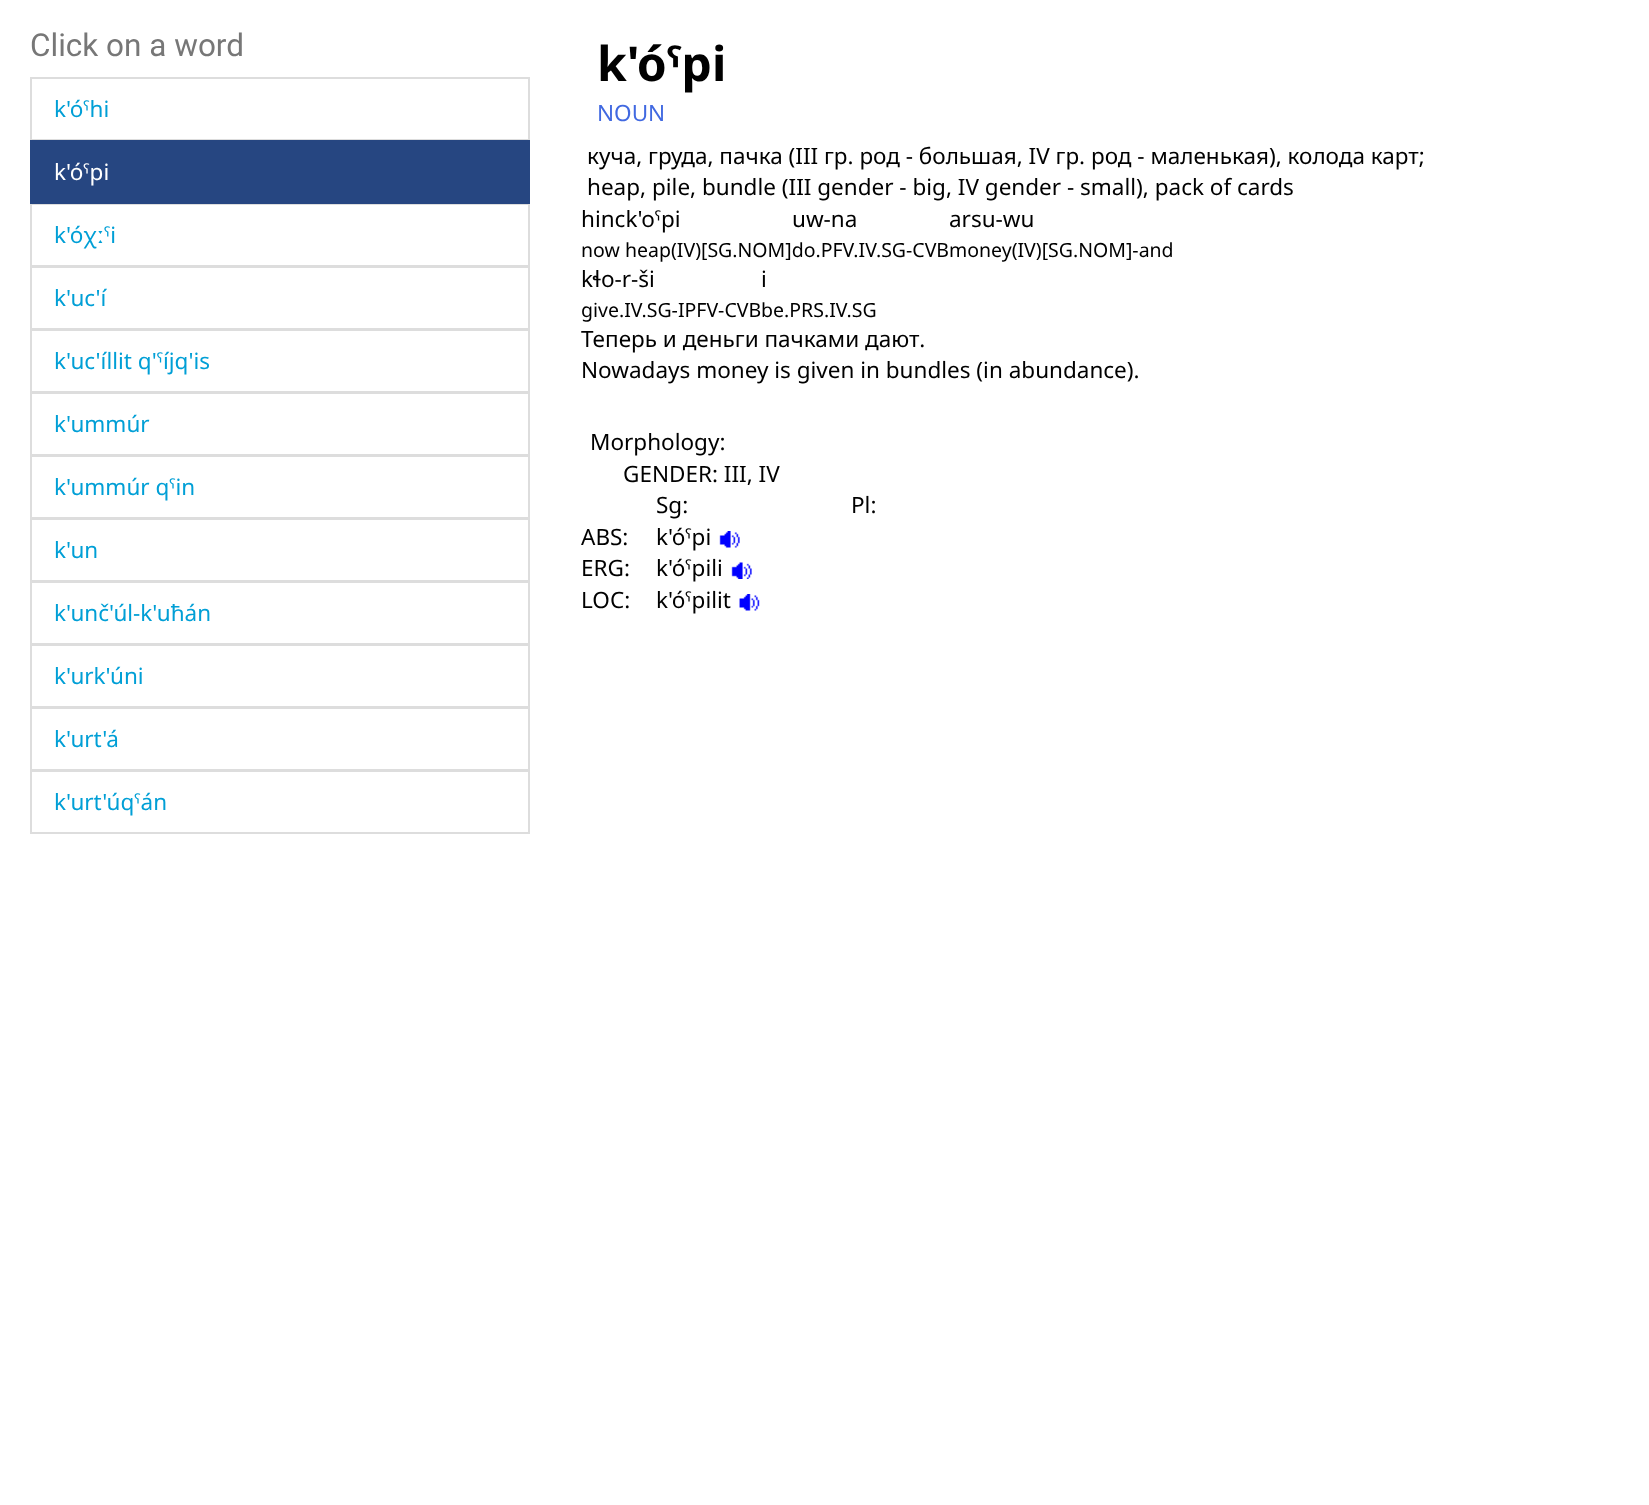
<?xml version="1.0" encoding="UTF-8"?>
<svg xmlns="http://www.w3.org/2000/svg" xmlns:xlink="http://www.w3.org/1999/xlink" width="1649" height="1505">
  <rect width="100%" height="100%" fill="#ffffff" />
  <rect x="31" y="78" width="498" height="62" fill="none" stroke="#dddddd" stroke-width="2" />
  <rect x="31" y="204" width="498" height="62" fill="none" stroke="#dddddd" stroke-width="2" />
  <rect x="30" y="140" width="500" height="64" fill="#264681" />
  <rect x="31" y="267" width="498" height="62" fill="none" stroke="#dddddd" stroke-width="2" />
  <rect x="31" y="330" width="498" height="62" fill="none" stroke="#dddddd" stroke-width="2" />
  <rect x="31" y="393" width="498" height="62" fill="none" stroke="#dddddd" stroke-width="2" />
  <rect x="31" y="456" width="498" height="62" fill="none" stroke="#dddddd" stroke-width="2" />
  <rect x="31" y="519" width="498" height="62" fill="none" stroke="#dddddd" stroke-width="2" />
  <rect x="31" y="582" width="498" height="62" fill="none" stroke="#dddddd" stroke-width="2" />
  <rect x="31" y="645" width="498" height="62" fill="none" stroke="#dddddd" stroke-width="2" />
  <rect x="31" y="708" width="498" height="62" fill="none" stroke="#dddddd" stroke-width="2" />
  <rect x="31" y="771" width="498" height="62" fill="none" stroke="#dddddd" stroke-width="2" />
  <image x="719" y="531" width="21" height="17" xlink:href="image1.png" />
  <image x="731" y="562" width="21" height="17" xlink:href="image2.png" />
  <image x="739" y="594" width="21" height="17" xlink:href="image3.png" />
  <text x="30" y="56" style="font-family: Roboto; font-size: 31.5px; fill: #777777">Click on a word</text>
  <text x="54" y="117" style="font-family: Noto Sans; font-size: 22.5px; fill: #009fd6">k'óˤhi</text>
  <text x="54" y="180" style="font-family: Noto Sans; font-size: 22.5px; fill: #ffffff">k'óˤpi</text>
  <text x="54" y="243" style="font-family: Noto Sans; font-size: 22.5px; fill: #009fd6">k'óχːˤi</text>
  <text x="54" y="306" style="font-family: Noto Sans; font-size: 22.5px; fill: #009fd6">k'uc'í</text>
  <text x="54" y="369" style="font-family: Noto Sans; font-size: 22.5px; fill: #009fd6">k'uc'íllit q'ˤíjq'is</text>
  <text x="54" y="432" style="font-family: Noto Sans; font-size: 22.5px; fill: #009fd6">k'ummúr</text>
  <text x="54" y="495" style="font-family: Noto Sans; font-size: 22.5px; fill: #009fd6">k'ummúr qˤin</text>
  <text x="54" y="558" style="font-family: Noto Sans; font-size: 22.5px; fill: #009fd6">k'un</text>
  <text x="54" y="621" style="font-family: Noto Sans; font-size: 22.5px; fill: #009fd6">k'unč'úl-k'uħán</text>
  <text x="54" y="684" style="font-family: Noto Sans; font-size: 22.5px; fill: #009fd6">k'urk'úni</text>
  <text x="54" y="747" style="font-family: Noto Sans; font-size: 22.5px; fill: #009fd6">k'urt'á</text>
  <text x="54" y="810" style="font-family: Noto Sans; font-size: 22.5px; fill: #009fd6">k'urt'úqˤán</text>
  <text x="597" y="81" style="font-family: Noto Sans; font-size: 48px; font-weight: bold; fill: #000000">k'óˤpi</text>
  <text x="597" y="121" style="font-family: Noto Sans; font-size: 22.5px; fill: #4169e1">NOUN</text>
  <text x="587" y="164" style="font-family: Noto Sans; font-size: 22.5px; fill: #000000">куча, груда, пачка (III гр. род - большая, IV гр. род - маленькая), колода карт;</text>
  <text x="587" y="195" style="font-family: Noto Sans; font-size: 22.5px; fill: #000000">heap, pile, bundle (III gender - big, IV gender - small), pack of cards</text>
  <text x="581" y="227" style="font-family: Noto Sans; font-size: 22.5px; fill: #000000">hinck'oˤpi</text>
  <text x="581" y="257" style="font-family: Noto Sans; font-size: 19.5px; fill: #000000">now</text>
  <text x="792" y="227" style="font-family: Noto Sans; font-size: 22.5px; fill: #000000">uw-na</text>
  <text x="949" y="227" style="font-family: Noto Sans; font-size: 22.5px; fill: #000000">arsu-wu</text>
  <text x="625" y="257" style="font-family: Noto Sans; font-size: 19.5px; fill: #000000">heap(IV)[SG.NOM]do.PFV.IV.SG-CVBmoney(IV)[SG.NOM]-and</text>
  <text x="581" y="287" style="font-family: Noto Sans; font-size: 22.5px; fill: #000000">kɬo-r-ši</text>
  <text x="581" y="317" style="font-family: Noto Sans; font-size: 19.5px; fill: #000000">give.IV.SG-IPFV-CVBbe.PRS.IV.SG</text>
  <text x="761" y="287" style="font-family: Noto Sans; font-size: 22.5px; fill: #000000">i</text>
  <text x="581" y="347" style="font-family: Noto Sans; font-size: 22.5px; fill: #000000">Теперь и деньги пачками дают.</text>
  <text x="581" y="378" style="font-family: Noto Sans; font-size: 22.5px; fill: #000000">Nowadays money is given in bundles (in abundance).</text>
  <text x="590" y="450" style="font-family: Noto Sans; font-size: 22.5px; fill: #000000">Morphology:</text>
  <text x="623" y="482" style="font-family: Noto Sans; font-size: 22.5px; fill: #000000">GENDER: III, IV</text>
  <text x="656" y="513" style="font-family: Noto Sans; font-size: 22.5px; fill: #000000">Sg:</text>
  <text x="851" y="513" style="font-family: Noto Sans; font-size: 22.5px; fill: #000000">Pl:</text>
  <text x="581" y="545" style="font-family: Noto Sans; font-size: 22.5px; fill: #000000">ABS:</text>
  <text x="656" y="545" style="font-family: Noto Sans; font-size: 22.5px; fill: #000000">k'óˤpi</text>
  <text x="581" y="576" style="font-family: Noto Sans; font-size: 22.5px; fill: #000000">ERG:</text>
  <text x="656" y="576" style="font-family: Noto Sans; font-size: 22.5px; fill: #000000">k'óˤpili</text>
  <text x="581" y="608" style="font-family: Noto Sans; font-size: 22.5px; fill: #000000">LOC:</text>
  <text x="656" y="608" style="font-family: Noto Sans; font-size: 22.5px; fill: #000000">k'óˤpilit</text>
</svg>
